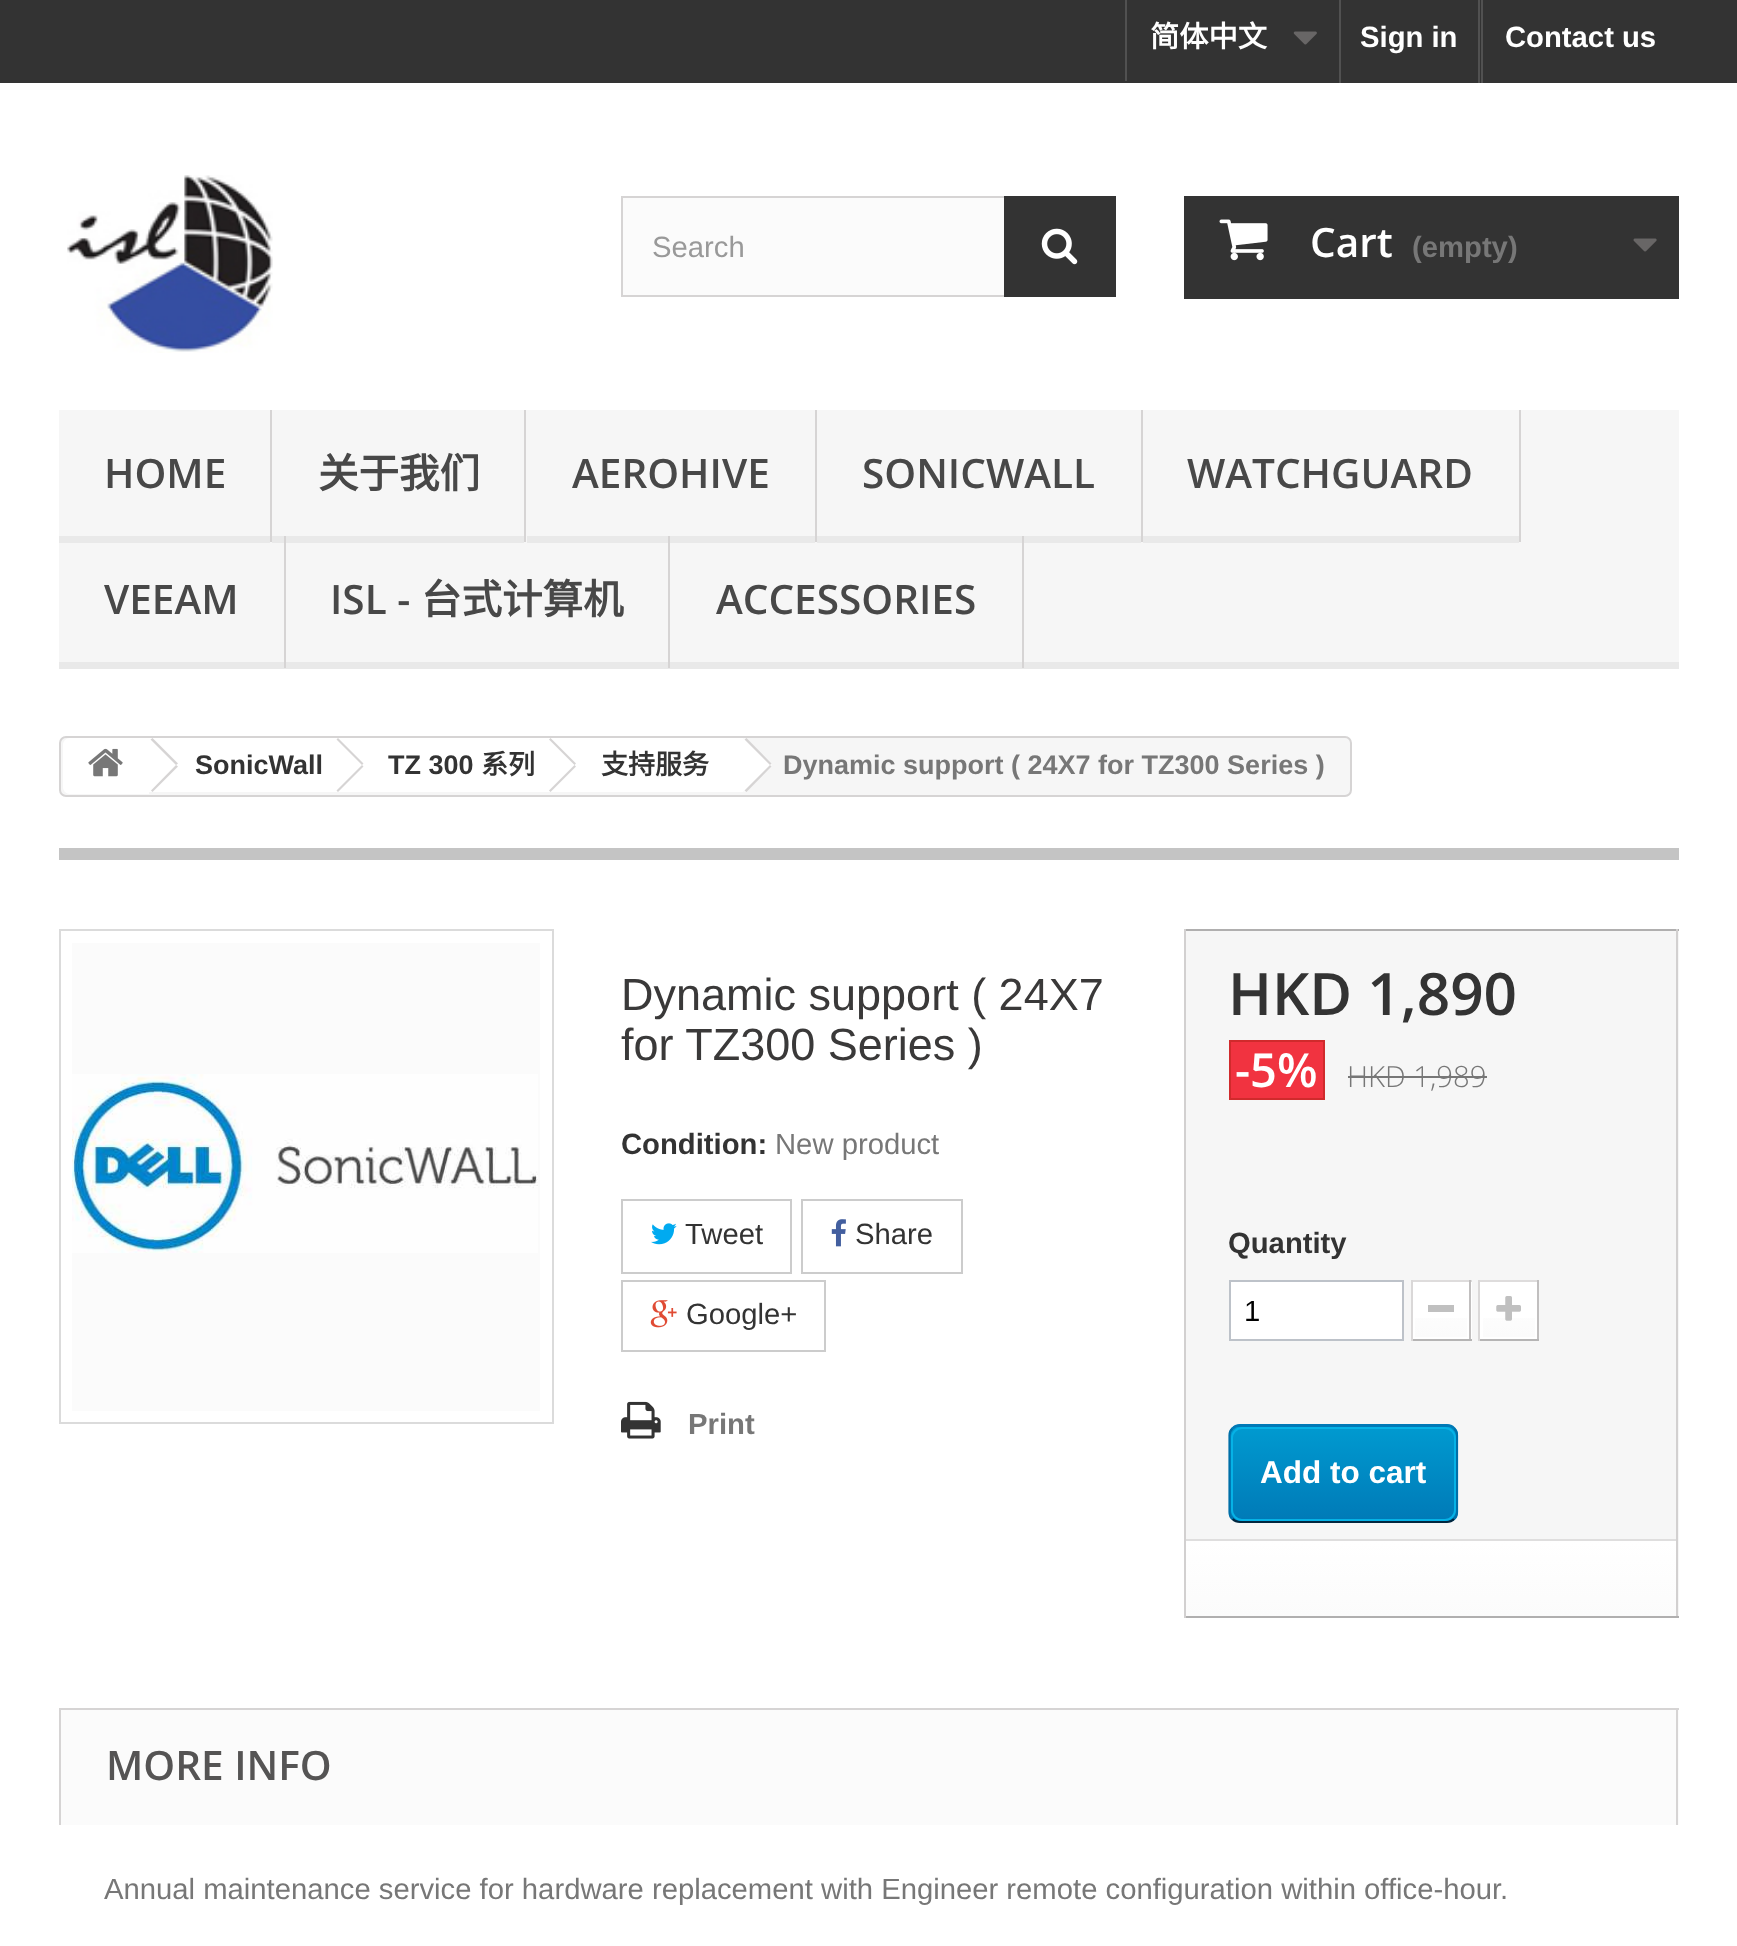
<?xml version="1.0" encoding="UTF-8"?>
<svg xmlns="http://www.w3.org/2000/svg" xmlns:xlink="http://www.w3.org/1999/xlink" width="1737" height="1946">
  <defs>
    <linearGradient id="g1" gradientUnits="userSpaceOnUse" x1="1441" y1="1285" x2="1441" y2="1337"><stop offset="0" stop-color="#ffffff" /><stop offset="1" stop-color="#fbfbfb" /></linearGradient>
    <linearGradient id="g2" gradientUnits="userSpaceOnUse" x1="1509" y1="1285" x2="1509" y2="1337"><stop offset="0" stop-color="#ffffff" /><stop offset="1" stop-color="#fbfbfb" /></linearGradient>
    <clipPath id="clip1"><rect x="1229" y="1424" width="229" height="99" rx="11" /></clipPath>
    <linearGradient id="g3" gradientUnits="userSpaceOnUse" x1="1343" y1="1332" x2="1343" y2="1427"><stop offset="0" stop-color="#009ad0" /><stop offset="1" stop-color="#007ab7" /></linearGradient>
    <linearGradient id="g4" gradientUnits="userSpaceOnUse" x1="1343" y1="1427" x2="1343" y2="1521"><stop offset="0" stop-color="#009ad0" /><stop offset="1" stop-color="#007ab7" /></linearGradient>
    <linearGradient id="g5" gradientUnits="userSpaceOnUse" x1="1431" y1="1541" x2="1431" y2="1616"><stop offset="0" stop-color="#ffffff" /><stop offset="1" stop-color="#fbfbfb" /></linearGradient>
  </defs>
  <rect width="100%" height="100%" fill="#ffffff" />
  <rect width="1737" height="83" fill="#333333" />
  <rect x="1125" width="2" height="81" fill="#515151" />
  <image x="1293" y="31" width="24" height="14" xlink:href="image1.png" />
  <rect x="1478" width="2" height="83" fill="#515151" />
  <rect x="1339" width="2" height="83" fill="#515151" />
  <rect x="1481" width="2" height="83" fill="#515151" />
  <image x="67" y="175" width="206" height="178" xlink:href="image2.png" />
  <rect x="623" y="198" width="381" height="97" fill="#fbfbfb" />
  <rect x="622" y="197" width="493" height="99" fill="none" stroke="#d6d4d4" stroke-width="2" />
  <rect x="1004" y="196" width="112" height="101" fill="#333333" />
  <image x="1041" y="228" width="37" height="37" xlink:href="image3.png" />
  <rect x="1184" y="196" width="495" height="103" fill="#333333" />
  <image x="1219" y="219" width="49" height="42" xlink:href="image4.png" />
  <image x="1633" y="238" width="24" height="14" xlink:href="image5.png" />
  <rect x="59" y="410" width="1620" height="252" fill="#f6f6f6" />
  <rect x="59" y="662" width="1620" height="7" fill="#e9e9e9" />
  <rect x="270" y="410" width="2" height="132" fill="#d6d4d4" />
  <rect x="59" y="536" width="211" height="7" fill="#e9e9e9" />
  <rect x="524" y="410" width="2" height="132" fill="#d6d4d4" />
  <rect x="272" y="536" width="252" height="7" fill="#e9e9e9" />
  <rect x="815" y="410" width="2" height="132" fill="#d6d4d4" />
  <rect x="527" y="536" width="288" height="7" fill="#e9e9e9" />
  <rect x="1141" y="410" width="2" height="132" fill="#d6d4d4" />
  <rect x="817" y="536" width="324" height="7" fill="#e9e9e9" />
  <rect x="1519" y="410" width="2" height="132" fill="#d6d4d4" />
  <rect x="1143" y="536" width="376" height="7" fill="#e9e9e9" />
  <rect x="284" y="536" width="2" height="132" fill="#d6d4d4" />
  <rect x="668" y="536" width="2" height="132" fill="#d6d4d4" />
  <rect x="1022" y="536" width="2" height="132" fill="#d6d4d4" />
  <rect x="60" y="737" width="1291" height="59" rx="6" fill="#f6f6f6" stroke="#d6d4d4" stroke-width="2" />
  <path d="M 70 738 h 79 v 56 h -79 c -4 0 -7 -3 -7 -7 v -42 c 0 -4 3 -7 7 -7 z" fill="#ffffff" />
  <image x="88" y="748" width="35" height="29" xlink:href="image6.png" />
  <rect x="149" y="738" width="191" height="54" fill="#ffffff" />
  <path d="M 152.5 738 l 25.5 25.5 l -2 1.5 l -25.5 -25.5 z m 23.5 27 l 2 1.5 l -25.5 25.5 l -1.5 -1.5 z" fill="#d6d4d4" />
  <path d="M 362 740 l 23 22 c 1 2 1 4 0 6 l -23 22 c -1 2 -4 2 -6 0 l -22 -22 c -2 -2 -2 -4 0 -6 l 22 -22 c 2 -2 5 -2 6 0 z" fill="#ffffff" />
  <rect x="340" y="738" width="211" height="54" fill="#ffffff" />
  <path d="M 338 738 l 25.5 25.5 l -1.5 1.5 l -25.5 -25.5 z m 24 27 l 1.5 1.5 l -25.5 25.5 l -1.5 -1.5 z" fill="#d6d4d4" />
  <path d="M 575 740 l 22 22 c 2 2 2 4 0 6 l -22 22 c -2 2 -5 2 -7 0 l -22 -22 c -2 -2 -2 -4 0 -6 l 22 -22 c 2 -2 5 -2 7 0 z" fill="#ffffff" />
  <rect x="551" y="738" width="192" height="54" fill="#ffffff" />
  <path d="M 550.5 738 l 25.5 25.5 l -1.5 1.5 l -25.5 -25.5 z m 24 27 l 1.5 1.5 l -25.5 25.5 l -1.5 -1.5 z" fill="#d6d4d4" />
  <path d="M 748 740 l 22 22 c 2 2 2 4 0 6 l -22 22 c -2 2 -5 2 -7 0 l -22 -22 c -2 -2 -2 -4 0 -6 l 22 -22 c 2 -2 5 -2 7 0 z" fill="#ffffff" />
  <path d="M 746.5 738 l 25 25.5 l -1.5 1.5 l -25.5 -25.5 z m 23.5 27 l 1.5 1.5 l -25 25.5 l -2 -1.5 z" fill="#d6d4d4" />
  <rect x="59" y="848" width="1620" height="12" fill="#c4c4c4" />
  <rect x="60" y="930" width="493" height="493" fill="none" stroke="#dbdbdb" stroke-width="2" />
  <rect x="72" y="943" width="468" height="468" fill="#fbfbfb" />
  <image x="72" y="1074" width="466" height="179" xlink:href="image7.png" />
  <rect x="622" y="1200" width="169" height="73" fill="none" stroke="#cccccc" stroke-width="2" />
  <image x="651" y="1223" width="26" height="22" xlink:href="image8.png" />
  <rect x="802" y="1200" width="160" height="73" fill="none" stroke="#cccccc" stroke-width="2" />
  <image x="831" y="1219" width="15" height="28" xlink:href="image9.png" />
  <rect x="622" y="1281" width="203" height="70" fill="none" stroke="#cccccc" stroke-width="2" />
  <image x="650" y="1300" width="27" height="28" xlink:href="image10.png" />
  <image x="621" y="1401" width="40" height="38" xlink:href="image11.png" />
  <rect x="1186" y="931" width="493" height="685" fill="#f6f6f6" />
  <rect x="1184" y="929" width="495" height="2" fill="#b0afaf" />
  <rect x="1676" y="929" width="2" height="689" fill="#d2d0d0" />
  <rect x="1184" y="1616" width="495" height="2" fill="#b0afaf" />
  <rect x="1184" y="929" width="2" height="689" fill="#d2d0d0" />
  <rect x="1230" y="1041" width="94" height="58" fill="#f13340" stroke="#d02a2c" stroke-width="2" />
  <rect x="1348" y="1076" width="139" height="2" fill="#777777" />
  <rect x="1230" y="1281" width="173" height="59" fill="#ffffff" stroke="#bdc2c9" stroke-width="2" />
  <rect x="1413" y="1282" width="59" height="57" fill="#ffffff" />
  <rect x="1411" y="1280" width="61" height="2" fill="#dedcdc" />
  <rect x="1469" y="1280" width="2" height="61" fill="#c1bfbf" />
  <rect x="1411" y="1339" width="61" height="2" fill="#b5b4b4" />
  <rect x="1411" y="1280" width="2" height="61" fill="#dad8d8" />
  <rect x="1415" y="1318" width="52" height="19" fill="url(#g1)" />
  <rect x="1428" y="1305" width="26" height="7" fill="#c0c0c0" />
  <rect x="1480" y="1282" width="57" height="57" fill="#ffffff" />
  <rect x="1478" y="1280" width="61" height="2" fill="#dedcdc" />
  <rect x="1537" y="1280" width="2" height="61" fill="#c1bfbf" />
  <rect x="1478" y="1339" width="61" height="2" fill="#b5b4b4" />
  <rect x="1478" y="1280" width="2" height="61" fill="#dad8d8" />
  <rect x="1483" y="1318" width="52" height="19" fill="url(#g2)" />
  <image x="1496" y="1296" width="25" height="25" xlink:href="image12.png" />
  <g clip-path="url(#clip1)">
    <rect x="1229" y="1424" width="229" height="3" fill="url(#g3)" />
    <rect x="1229" y="1427" width="229" height="94" fill="url(#g4)" />
  </g>
  <path d="M 1232.5 1428.5 c 2 -2 4.5 -3 7.5 -3 h 207 c 2.5 0 5 1 7 3" fill="none" stroke="#0079b6" stroke-width="2.2" />
  <path d="M 1454 1428.5 c 2 1.5 3 4.5 3 7 v 76.5 c 0 2.5 -1 5.5 -3 7" fill="none" stroke="#006fa8" stroke-width="2.2" />
  <path d="M 1454 1519 c -2 2 -4.5 3 -7 3 h -207 c -3 0 -5.5 -1 -7.5 -3" fill="none" stroke="#012740" stroke-width="2.2" />
  <path d="M 1232.5 1519 c -2 -1.5 -3 -4.5 -3 -7 v -76.5 c 0 -2.5 1 -5.5 3 -7" fill="none" stroke="#006fa8" stroke-width="2.2" />
  <rect x="1232" y="1428" width="223" height="92" rx="10" fill="none" stroke="#06b2e6" stroke-width="2" />
  <rect x="1186" y="1541" width="490" height="75" fill="url(#g5)" />
  <rect x="1186" y="1539" width="490" height="2" fill="#dfdede" />
  <rect x="61" y="1710" width="1618" height="115" fill="#fbfbfb" />
  <rect x="59" y="1708" width="1620" height="2" fill="#d6d4d4" />
  <rect x="1676" y="1708" width="2" height="117" fill="#d6d4d4" />
  <rect x="59" y="1708" width="2" height="117" fill="#d6d4d4" />
  <text x="1150" y="47" style="font-family: Noto Sans CJK SC; font-size: 29.25px; font-weight: bold; fill: #ffffff">简体中文</text>
  <text x="1360" y="47" style="font-family: Liberation Sans; font-size: 29.25px; font-weight: bold; fill: #ffffff">Sign in</text>
  <text x="1505" y="47" style="font-family: Liberation Sans; font-size: 29.25px; font-weight: bold; fill: #ffffff">Contact us</text>
  <text x="652" y="257" style="font-family: Liberation Sans; font-size: 29.25px; fill: #999999">Search</text>
  <text x="1310" y="257" style="font-family: Open Sans; font-size: 40.5px; font-weight: 600; fill: #ffffff">Cart</text>
  <text x="1412" y="257" style="font-family: Liberation Sans; font-size: 29.25px; font-weight: bold; fill: #777777">(empty)</text>
  <text x="104" y="488" style="font-family: Open Sans; font-size: 40.5px; font-weight: 600; fill: #484848">HOME</text>
  <text x="318" y="488" style="font-family: Noto Sans CJK SC; font-size: 40.5px; font-weight: bold; fill: #484848">关于我们</text>
  <text x="572" y="488" style="font-family: Open Sans; font-size: 40.5px; font-weight: 600; fill: #484848">AEROHIVE</text>
  <text x="862" y="488" style="font-family: Open Sans; font-size: 40.5px; font-weight: 600; fill: #484848">SONICWALL</text>
  <text x="1187" y="488" style="font-family: Open Sans; font-size: 40.5px; font-weight: 600; fill: #484848">WATCHGUARD</text>
  <text x="104" y="614" style="font-family: Open Sans; font-size: 40.5px; font-weight: 600; fill: #484848">VEEAM</text>
  <text x="330" y="614" style="font-family: Open Sans; font-size: 40.5px; font-weight: 600; fill: #484848">ISL -</text>
  <text x="421" y="614" style="font-family: Noto Sans CJK SC; font-size: 40.5px; font-weight: bold; fill: #484848">台式计算机</text>
  <text x="716" y="614" style="font-family: Open Sans; font-size: 40.5px; font-weight: 600; fill: #484848">ACCESSORIES</text>
  <text x="195" y="774" style="font-family: Liberation Sans; font-size: 27px; font-weight: bold; fill: #333333">SonicWall</text>
  <text x="388" y="774" style="font-family: Liberation Sans; font-size: 27px; font-weight: bold; fill: #333333">TZ 300</text>
  <text x="481" y="774" style="font-family: Noto Sans CJK SC; font-size: 27px; font-weight: bold; fill: #333333">系列</text>
  <text x="601" y="774" style="font-family: Noto Sans CJK SC; font-size: 27px; font-weight: bold; fill: #333333">支持服务</text>
  <text x="783" y="774" style="font-family: Liberation Sans; font-size: 27px; font-weight: bold; fill: #777777">Dynamic support ( 24X7 for TZ300 Series )</text>
  <text x="621" y="1010" style="font-family: Liberation Sans; font-size: 45px; fill: #3a3939">Dynamic support ( 24X7</text>
  <text x="621" y="1060" style="font-family: Liberation Sans; font-size: 45px; fill: #3a3939">for TZ300 Series )</text>
  <text x="621" y="1154" style="font-family: Liberation Sans; font-size: 29.25px; font-weight: bold; fill: #333333">Condition:</text>
  <text x="775" y="1154" style="font-family: Liberation Sans; font-size: 29.25px; fill: #777777">New product</text>
  <text x="685" y="1244" style="font-family: Liberation Sans; font-size: 29.25px; fill: #333333">Tweet</text>
  <text x="855" y="1244" style="font-family: Liberation Sans; font-size: 29.25px; fill: #333333">Share</text>
  <text x="686" y="1324" style="font-family: Liberation Sans; font-size: 29.25px; fill: #333333">Google+</text>
  <text x="688" y="1434" style="font-family: Liberation Sans; font-size: 29.25px; font-weight: bold; fill: #777777">Print</text>
  <text x="1228" y="1015" style="font-family: Open Sans; font-size: 58.5px; font-weight: 600; fill: #333333">HKD 1,890</text>
  <text x="1235" y="1087" style="font-family: Open Sans; font-size: 47px; font-weight: 600; fill: #ffffff">-5%</text>
  <text x="1347" y="1087" style="font-family: Open Sans; font-size: 29.25px; font-weight: 300; fill: #777777">HKD 1,989</text>
  <text x="1228" y="1253" style="font-family: Liberation Sans; font-size: 29.25px; font-weight: bold; fill: #333333">Quantity</text>
  <text x="1244" y="1321" style="font-family: Liberation Sans; font-size: 29.25px; fill: #000000">1</text>
  <text x="1260" y="1483" style="font-family: Liberation Sans; font-size: 31.5px; font-weight: bold; fill: #ffffff">Add to cart</text>
  <text x="106" y="1780" style="font-family: Open Sans; font-size: 40.5px; font-weight: 600; fill: #555454">MORE INFO</text>
  <text x="104" y="1899" style="font-family: Liberation Sans; font-size: 29.25px; fill: #777777">Annual maintenance service for hardware replacement with Engineer remote configuration within office-hour.</text>
</svg>
